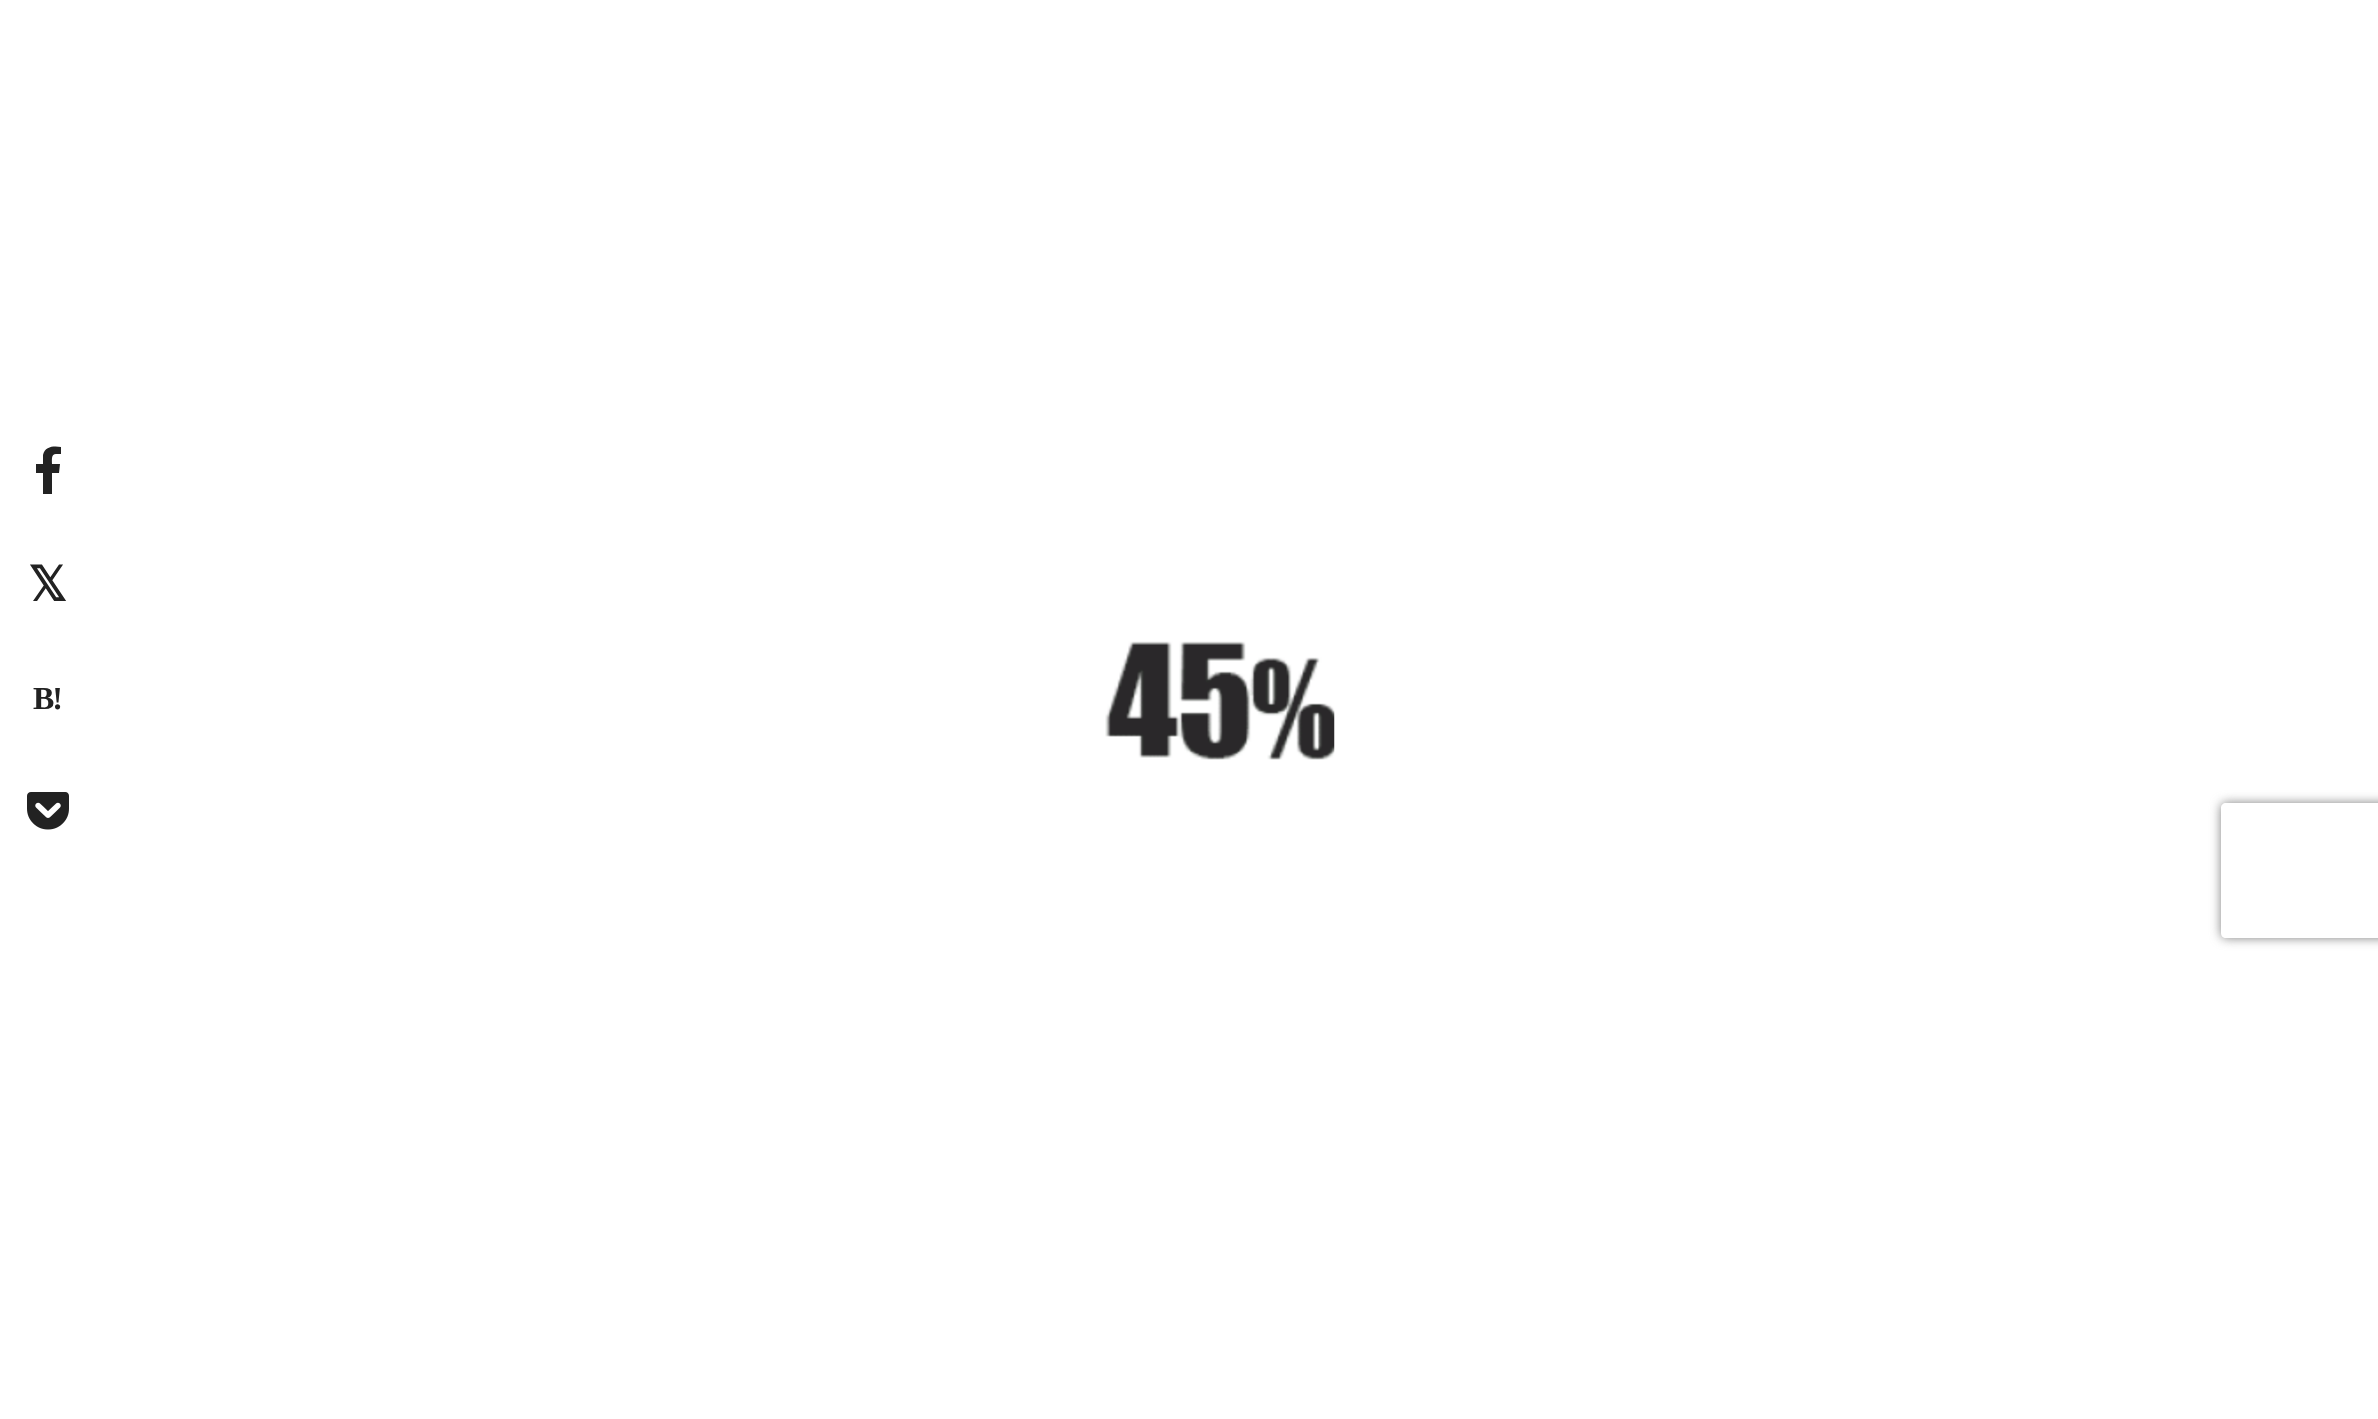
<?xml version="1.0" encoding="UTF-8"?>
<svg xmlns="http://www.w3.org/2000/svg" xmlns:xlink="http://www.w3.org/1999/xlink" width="2378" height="1419">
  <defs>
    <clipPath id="clip1"><path d="M 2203 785 h 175 v 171 h -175 z m 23 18 h 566 c 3 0 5 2 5 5 v 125 c 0 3 -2 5 -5 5 h -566 c -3 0 -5 -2 -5 -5 v -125 c 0 -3 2 -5 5 -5 z" clip-rule="evenodd" /></clipPath>
  </defs>
  <rect width="100%" height="100%" fill="#ffffff" />
  <path d="M 56 454 c -5 0 -4 6 -4 10 h 8 l -1 9 h -7 v 21 h -9 v -21 h -7 v -9 h 7 v -9 c 2 -9 11 -9 18 -8 v 7 z" fill="#222222" />
  <image x="27" y="792" width="42" height="38" xlink:href="image1.png" />
  <image x="1105" y="641" width="230" height="119" xlink:href="image2.png" />
  <g clip-path="url(#clip1)">
    <rect x="2221" y="803" width="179" height="135" rx="5" fill="#808080" filter="blur(5.5px)" />
  </g>
  <text x="28" y="601" style="font-family: DejaVu Sans; font-size: 48px; font-weight: bold; fill: #222222">𝕏</text>
  <text x="33" y="709" style="font-family: Liberation Serif; font-size: 32px; font-weight: bold; letter-spacing: -2px; fill: #222222">B!</text>
</svg>
